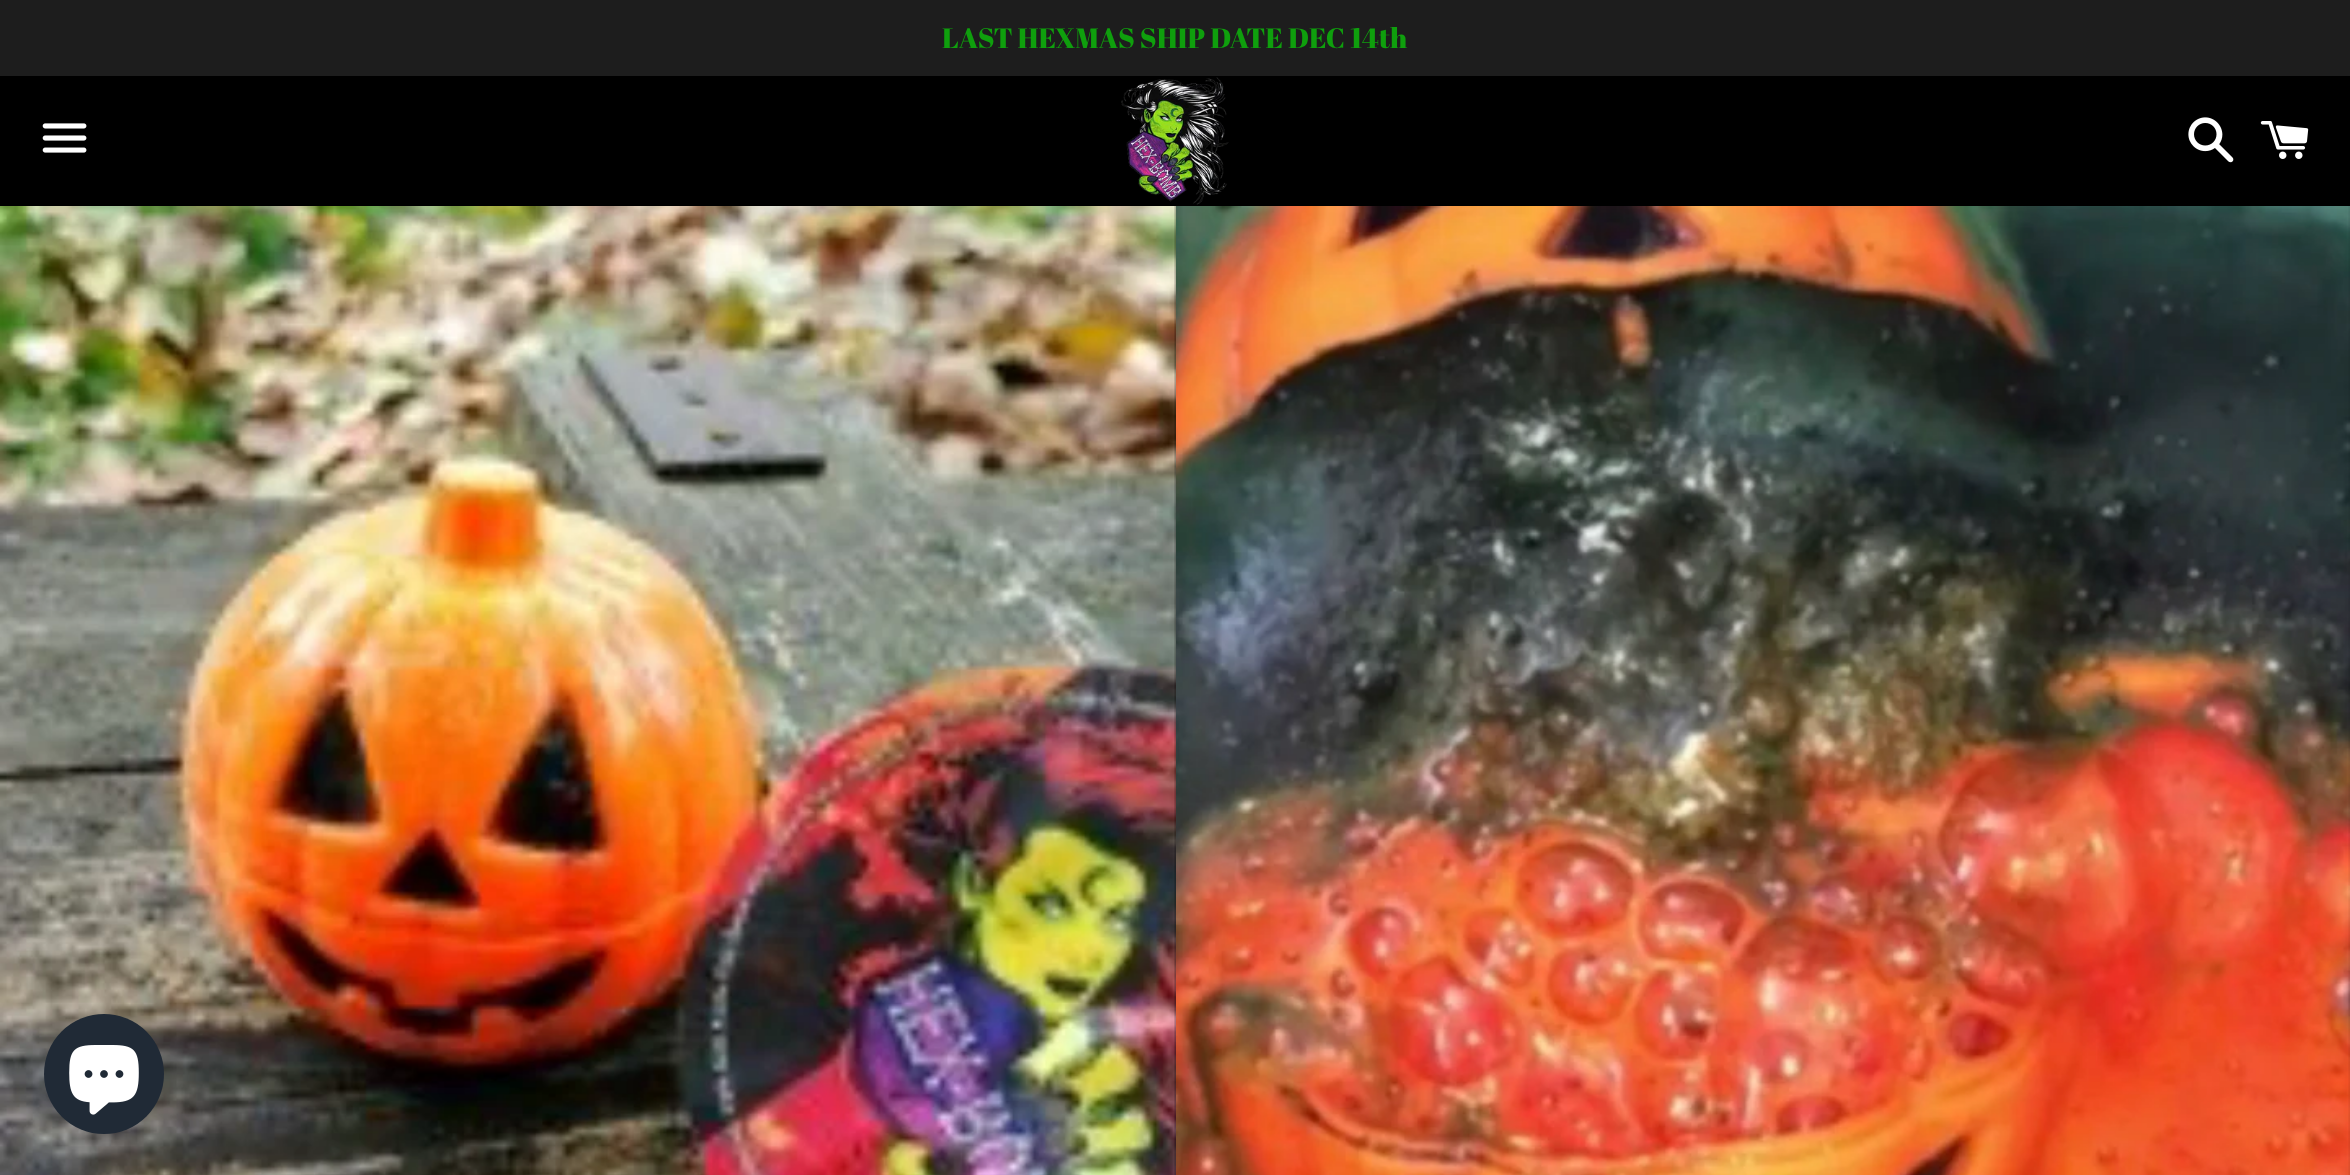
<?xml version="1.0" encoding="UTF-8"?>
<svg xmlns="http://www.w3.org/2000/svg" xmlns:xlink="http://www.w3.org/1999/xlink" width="2350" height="1175">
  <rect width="100%" height="100%" fill="#000000" />
  <rect width="2350" height="76" fill="#1d1d1d" />
  <image x="42" y="123" width="45" height="30" xlink:href="image1.png" />
  <image x="1121" y="77" width="108" height="128" xlink:href="image2.png" />
  <image x="2188" y="117" width="46" height="46" xlink:href="image3.png" />
  <image x="2260" y="121" width="49" height="38" xlink:href="image4.png" />
  <image x="0" y="206" width="1176" height="969" xlink:href="image5.png" />
  <image x="1176" y="206" width="1174" height="969" xlink:href="image6.png" />
  <circle cx="104" cy="1074" r="60" fill="#202a36" />
  <image x="69" y="1045" width="70" height="70" xlink:href="image7.png" />
  <text x="942" y="48" style="font-family: Abril Fatface; font-size: 28px; fill: #0f9f0d">LAST HEXMAS SHIP DATE DEC 14th</text>
</svg>
